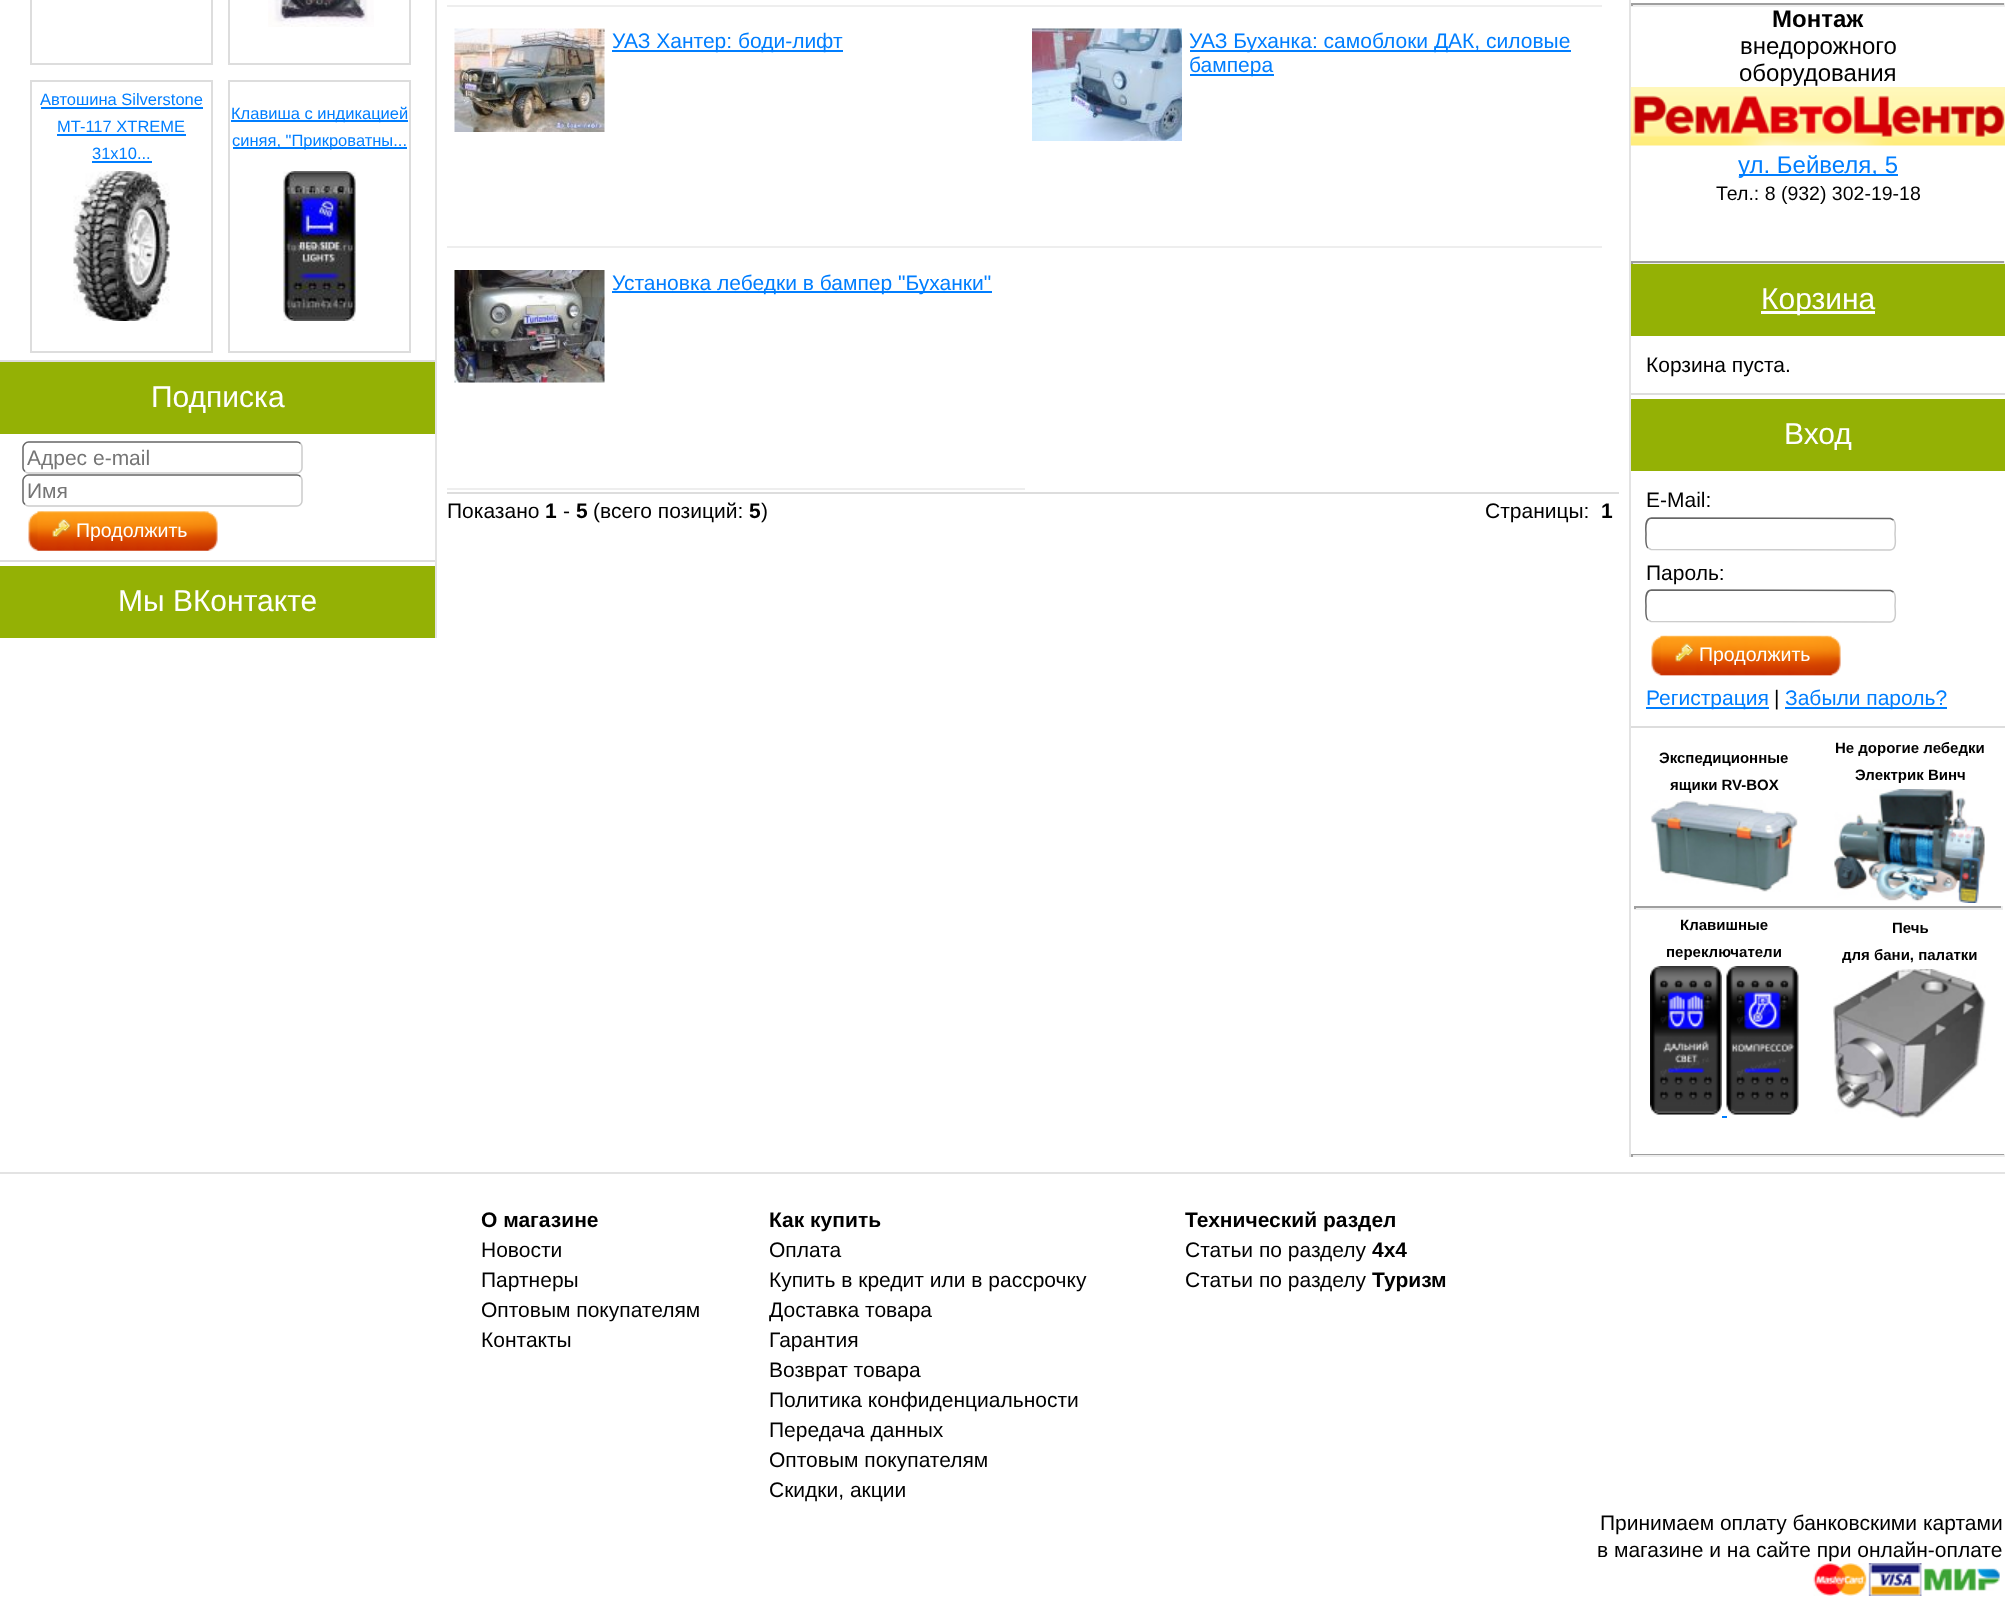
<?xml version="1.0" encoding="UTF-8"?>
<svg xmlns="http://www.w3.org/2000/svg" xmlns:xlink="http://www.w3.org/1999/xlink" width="2005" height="1604">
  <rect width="100%" height="100%" fill="#ffffff" />
  <rect x="435" width="2" height="638" fill="#e3e3e3" />
  <rect y="360" width="435" height="2" fill="#dddddd" />
  <rect x="31" y="-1" width="181" height="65" fill="none" stroke="#dddddd" stroke-width="2" />
  <rect x="229" y="-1" width="181" height="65" fill="none" stroke="#dddddd" stroke-width="2" />
  <image x="268" y="0" width="106" height="27" xlink:href="image1.png" />
  <rect x="31" y="81" width="181" height="271" fill="none" stroke="#dddddd" stroke-width="2" />
  <rect x="41" y="107" width="162" height="2" fill="#007eff" />
  <rect x="57" y="134" width="129" height="2" fill="#007eff" />
  <rect x="92" y="161" width="60" height="2" fill="#007eff" />
  <image x="73" y="171" width="97" height="150" xlink:href="image2.png" />
  <rect x="229" y="81" width="181" height="271" fill="none" stroke="#dddddd" stroke-width="2" />
  <rect x="231" y="120" width="177" height="2" fill="#007eff" />
  <rect x="233" y="147" width="174" height="2" fill="#007eff" />
  <image x="283" y="171" width="73" height="150" xlink:href="image3.png" />
  <rect y="362" width="435" height="72" fill="#94b105" />
  <rect y="560" width="435" height="2" fill="#dddddd" />
  <path d="M 300.5 443.5 c 1 1 1.5 2 1.5 3.5 v 21 c 0 1.5 -0.5 2.5 -1.5 3.5 c -1 1 -2 1.5 -3.5 1.5 h -268.5 c -1.5 0 -2.5 -0.5 -3.5 -1.5" fill="none" stroke="#cccccc" stroke-width="1.5" />
  <path d="M 25 471.5 c -1 -1 -2 -2 -2 -3.5 v -21 c 0 -1.5 1 -2.5 2 -3.5 c 1 -1 2 -1.5 3.5 -1.5 h 268.5 c 1.5 0 2.5 0.5 3.5 1.5" fill="none" stroke="#666666" stroke-width="1.5" />
  <path d="M 300.5 476.5 c 1 1 1.5 2 1.5 3.5 v 21 c 0 1.5 -0.5 2.5 -1.5 3.5 c -1 1 -2 1.5 -3.5 1.5 h -268.5 c -1.5 0 -2.5 -0.5 -3.5 -1.5" fill="none" stroke="#cccccc" stroke-width="1.5" />
  <path d="M 25 504.5 c -1 -1 -2 -2 -2 -3.5 v -21 c 0 -1.5 1 -2.5 2 -3.5 c 1 -1 2 -1.5 3.5 -1.5 h 268.5 c 1.5 0 2.5 0.5 3.5 1.5" fill="none" stroke="#666666" stroke-width="1.5" />
  <image x="28" y="511" width="181" height="40" xlink:href="image4.png" />
  <image x="37" y="511" width="181" height="40" xlink:href="image5.png" />
  <image x="52" y="519" width="19" height="18" xlink:href="image6.png" />
  <rect y="566" width="435" height="72" fill="#94b105" />
  <rect x="447" y="492" width="1172" height="2" fill="#dddddd" />
  <rect x="447" y="5" width="1155" height="2" fill="#eeeeee" />
  <rect x="447" y="246" width="1155" height="2" fill="#eeeeee" />
  <image x="454" y="28" width="151" height="104" xlink:href="image7.png" />
  <rect x="612" y="50" width="231" height="2" fill="#007eff" />
  <image x="1032" y="28" width="150" height="113" xlink:href="image8.png" />
  <rect x="1190" y="50" width="381" height="2" fill="#007eff" />
  <rect x="1190" y="74" width="84" height="2" fill="#007eff" />
  <rect x="447" y="488" width="578" height="2" fill="#eeeeee" />
  <image x="454" y="270" width="151" height="113" xlink:href="image9.png" />
  <rect x="612" y="291" width="380" height="2" fill="#007eff" />
  <rect x="1629" width="2" height="1157" fill="#e3e3e3" />
  <rect x="1631" y="3" width="374" height="2" fill="#9f9f9f" />
  <rect x="2004" y="3" width="1" height="3" fill="#eeeeee" />
  <rect x="1631" y="5" width="374" height="2" fill="#eeeeee" />
  <rect x="1631" y="3" width="2" height="3" fill="#9f9f9f" />
  <image x="1630" y="87" width="375" height="59" xlink:href="image10.png" />
  <rect x="1739" y="174" width="159" height="2" fill="#007eff" />
  <rect x="1631" y="261" width="374" height="2" fill="#9f9f9f" />
  <rect x="2004" y="261" width="1" height="3" fill="#eeeeee" />
  <rect x="1631" y="263" width="374" height="1" fill="#eeeeee" />
  <rect x="1631" y="261" width="2" height="3" fill="#9f9f9f" />
  <rect x="1631" y="264" width="374" height="72" fill="#94b105" />
  <rect x="1761" y="311" width="114" height="3" fill="#ffffff" />
  <rect x="1631" y="393" width="374" height="2" fill="#dddddd" />
  <rect x="1631" y="399" width="374" height="72" fill="#94b105" />
  <rect x="1631" y="726" width="374" height="2" fill="#dddddd" />
  <path d="M 1893.5 520 c 3 2.5 1.5 10.5 1.5 14 c 0 4 2.5 15.5 -5 16 l -239 -0.5 l -3 -1.5" fill="none" stroke="#cccccc" stroke-width="1.5" />
  <path d="M 1648 548 c -3 -2.5 -2 -10.5 -2 -14 c 0 -4 -2 -15.5 5.5 -16 l 239 0.5 l 3 1.5" fill="none" stroke="#666666" stroke-width="1.5" />
  <path d="M 1893.5 592 c 3 2.5 1.5 10.5 1.5 14 c 0 4 2.5 15.5 -5 16 l -239 -0.5 l -3 -1.5" fill="none" stroke="#cccccc" stroke-width="1.5" />
  <path d="M 1648 620 c -3 -2.5 -2 -10.5 -2 -14 c 0 -4 -2 -15.5 5.5 -16 l 239 0.5 l 3 1.5" fill="none" stroke="#666666" stroke-width="1.5" />
  <image x="1651" y="635" width="181" height="41" xlink:href="image11.png" />
  <image x="1660" y="635" width="181" height="41" xlink:href="image12.png" />
  <image x="1675" y="643" width="19" height="19" xlink:href="image13.png" />
  <rect x="1646" y="707" width="123" height="2" fill="#007eff" />
  <rect x="1785" y="707" width="162" height="2" fill="#007eff" />
  <image x="1650" y="800" width="148" height="92" xlink:href="image14.png" />
  <image x="1834" y="789" width="151" height="114" xlink:href="image15.png" />
  <rect x="1634" y="906" width="369" height="2" fill="#9f9f9f" />
  <rect x="2001" y="906" width="2" height="3" fill="#eeeeee" />
  <rect x="1634" y="908" width="369" height="2" fill="#eeeeee" />
  <rect x="1634" y="906" width="2" height="3" fill="#9f9f9f" />
  <image x="1650" y="966" width="72" height="149" xlink:href="image16.png" />
  <image x="1726" y="966" width="73" height="149" xlink:href="image17.png" />
  <rect x="1722" y="1116" width="5" height="2" fill="#007eff" />
  <image x="1833" y="969" width="153" height="150" xlink:href="image18.png" />
  <rect x="1631" y="1154" width="374" height="1" fill="#9f9f9f" />
  <rect x="2004" y="1154" width="1" height="3" fill="#eeeeee" />
  <rect x="1631" y="1155" width="374" height="2" fill="#eeeeee" />
  <rect x="1631" y="1154" width="2" height="3" fill="#9f9f9f" />
  <rect y="1172" width="2005" height="2" fill="#e3e3e3" />
  <image x="1813" y="1563" width="187" height="33" xlink:href="image19.png" />
  <text x="40" y="105" style="font-family: Liberation Sans; font-size: 16.5px; fill: #007eff">Автошина Silverstone</text>
  <text x="57" y="132" style="font-family: Liberation Sans; font-size: 16.5px; fill: #007eff">MT-117 XTREME</text>
  <text x="92" y="159" style="font-family: Liberation Sans; font-size: 16.5px; fill: #007eff">31x10...</text>
  <text x="231" y="119" style="font-family: Liberation Sans; font-size: 16.5px; fill: #007eff">Клавиша с индикацией</text>
  <text x="232" y="146" style="font-family: Liberation Sans; font-size: 16.5px; fill: #007eff">синяя, "Прикроватны...</text>
  <text x="151" y="407" style="font-family: Liberation Sans; font-size: 30px; fill: #ffffff">Подписка</text>
  <text x="27" y="465" style="font-family: Liberation Sans; font-size: 21px; fill: #757575">Адрес e-mail</text>
  <text x="27" y="498" style="font-family: Liberation Sans; font-size: 21px; fill: #757575">Имя</text>
  <text x="76" y="537" style="font-family: Liberation Sans; font-size: 19.5px; fill: #ffffff">Продолжить</text>
  <text x="118" y="611" style="font-family: Liberation Sans; font-size: 30px; fill: #ffffff">Мы ВКонтакте</text>
  <text x="612" y="48" style="font-family: Liberation Sans; font-size: 21px; fill: #007eff">УАЗ Хантер: боди-лифт</text>
  <text x="1189" y="48" style="font-family: Liberation Sans; font-size: 21px; fill: #007eff">УАЗ Буханка: самоблоки ДАК, силовые</text>
  <text x="1189" y="72" style="font-family: Liberation Sans; font-size: 21px; fill: #007eff">бампера</text>
  <text x="612" y="290" style="font-family: Liberation Sans; font-size: 21px; fill: #007eff">Установка лебедки в бампер "Буханки"</text>
  <text x="447" y="518" style="font-family: Liberation Sans; font-size: 21px; fill: #000000">Показано</text>
  <text x="545" y="518" style="font-family: Liberation Sans; font-size: 21px; font-weight: bold; fill: #000000">1</text>
  <text x="563" y="518" style="font-family: Liberation Sans; font-size: 21px; fill: #000000">-</text>
  <text x="576" y="518" style="font-family: Liberation Sans; font-size: 21px; font-weight: bold; fill: #000000">5</text>
  <text x="593" y="518" style="font-family: Liberation Sans; font-size: 21px; fill: #000000">(всего позиций:</text>
  <text x="749" y="518" style="font-family: Liberation Sans; font-size: 21px; font-weight: bold; fill: #000000">5</text>
  <text x="761" y="518" style="font-family: Liberation Sans; font-size: 21px; fill: #000000">)</text>
  <text x="1485" y="518" style="font-family: Liberation Sans; font-size: 21px; fill: #000000">Страницы:</text>
  <text x="1601" y="518" style="font-family: Liberation Sans; font-size: 21px; font-weight: bold; fill: #000000">1</text>
  <text x="1772" y="27" style="font-family: Liberation Sans; font-size: 24px; font-weight: bold; fill: #000000">Монтаж</text>
  <text x="1740" y="54" style="font-family: Liberation Sans; font-size: 24px; fill: #000000">внедорожного</text>
  <text x="1739" y="81" style="font-family: Liberation Sans; font-size: 24px; fill: #000000">оборудования</text>
  <text x="1738" y="173" style="font-family: Liberation Sans; font-size: 24px; fill: #007eff">ул. Бейвеля, 5</text>
  <text x="1716" y="200" style="font-family: Liberation Sans; font-size: 19.5px; fill: #000000">Тел.: 8 (932) 302-19-18</text>
  <text x="1761" y="309" style="font-family: Liberation Sans; font-size: 30px; fill: #ffffff">Корзина</text>
  <text x="1646" y="372" style="font-family: Liberation Sans; font-size: 21px; fill: #000000">Корзина пуста.</text>
  <text x="1784" y="444" style="font-family: Liberation Sans; font-size: 30px; fill: #ffffff">Вход</text>
  <text x="1646" y="507" style="font-family: Liberation Sans; font-size: 21px; fill: #000000">E-Mail:</text>
  <text x="1646" y="580" style="font-family: Liberation Sans; font-size: 21px; fill: #000000">Пароль:</text>
  <text x="1699" y="661" style="font-family: Liberation Sans; font-size: 19.5px; fill: #ffffff">Продолжить</text>
  <text x="1646" y="705" style="font-family: Liberation Sans; font-size: 21px; fill: #007eff">Регистрация</text>
  <text x="1774" y="705" style="font-family: Liberation Sans; font-size: 21px; fill: #000000">|</text>
  <text x="1785" y="705" style="font-family: Liberation Sans; font-size: 21px; fill: #007eff">Забыли пароль?</text>
  <text x="1659" y="763" style="font-family: Liberation Sans; font-size: 15px; font-weight: bold; fill: #000000">Экспедиционные</text>
  <text x="1670" y="790" style="font-family: Liberation Sans; font-size: 15px; font-weight: bold; fill: #000000">ящики RV-BOX</text>
  <text x="1835" y="753" style="font-family: Liberation Sans; font-size: 15px; font-weight: bold; fill: #000000">Не дорогие лебедки</text>
  <text x="1855" y="780" style="font-family: Liberation Sans; font-size: 15px; font-weight: bold; fill: #000000">Электрик Винч</text>
  <text x="1680" y="930" style="font-family: Liberation Sans; font-size: 15px; font-weight: bold; fill: #000000">Клавишные</text>
  <text x="1666" y="957" style="font-family: Liberation Sans; font-size: 15px; font-weight: bold; fill: #000000">переключатели</text>
  <text x="1892" y="933" style="font-family: Liberation Sans; font-size: 15px; font-weight: bold; fill: #000000">Печь</text>
  <text x="1842" y="960" style="font-family: Liberation Sans; font-size: 15px; font-weight: bold; fill: #000000">для бани, палатки</text>
  <text x="481" y="1227" style="font-family: Liberation Sans; font-size: 21px; font-weight: bold; fill: #000000">О магазине</text>
  <text x="769" y="1227" style="font-family: Liberation Sans; font-size: 21px; font-weight: bold; fill: #000000">Как купить</text>
  <text x="1185" y="1227" style="font-family: Liberation Sans; font-size: 21px; font-weight: bold; fill: #000000">Технический раздел</text>
  <text x="481" y="1257" style="font-family: Liberation Sans; font-size: 21px; fill: #000000">Новости</text>
  <text x="769" y="1257" style="font-family: Liberation Sans; font-size: 21px; fill: #000000">Оплата</text>
  <text x="1185" y="1257" style="font-family: Liberation Sans; font-size: 21px; fill: #000000">Статьи по разделу</text>
  <text x="1372" y="1257" style="font-family: Liberation Sans; font-size: 21px; font-weight: bold; fill: #000000">4х4</text>
  <text x="481" y="1287" style="font-family: Liberation Sans; font-size: 21px; fill: #000000">Партнеры</text>
  <text x="769" y="1287" style="font-family: Liberation Sans; font-size: 21px; fill: #000000">Купить в кредит или в рассрочку</text>
  <text x="1185" y="1287" style="font-family: Liberation Sans; font-size: 21px; fill: #000000">Статьи по разделу</text>
  <text x="1372" y="1287" style="font-family: Liberation Sans; font-size: 21px; font-weight: bold; fill: #000000">Туризм</text>
  <text x="481" y="1317" style="font-family: Liberation Sans; font-size: 21px; fill: #000000">Оптовым покупателям</text>
  <text x="769" y="1317" style="font-family: Liberation Sans; font-size: 21px; fill: #000000">Доставка товара</text>
  <text x="481" y="1347" style="font-family: Liberation Sans; font-size: 21px; fill: #000000">Контакты</text>
  <text x="769" y="1347" style="font-family: Liberation Sans; font-size: 21px; fill: #000000">Гарантия</text>
  <text x="769" y="1377" style="font-family: Liberation Sans; font-size: 21px; fill: #000000">Возврат товара</text>
  <text x="769" y="1407" style="font-family: Liberation Sans; font-size: 21px; fill: #000000">Политика конфиденциальности</text>
  <text x="769" y="1437" style="font-family: Liberation Sans; font-size: 21px; fill: #000000">Передача данных</text>
  <text x="769" y="1467" style="font-family: Liberation Sans; font-size: 21px; fill: #000000">Оптовым покупателям</text>
  <text x="769" y="1497" style="font-family: Liberation Sans; font-size: 21px; fill: #000000">Скидки, акции</text>
  <text x="1600" y="1530" style="font-family: Liberation Sans; font-size: 21px; fill: #000000">Принимаем оплату банковскими картами</text>
  <text x="1597" y="1557" style="font-family: Liberation Sans; font-size: 21px; fill: #000000">в магазине и на сайте при онлайн-оплате</text>
</svg>
